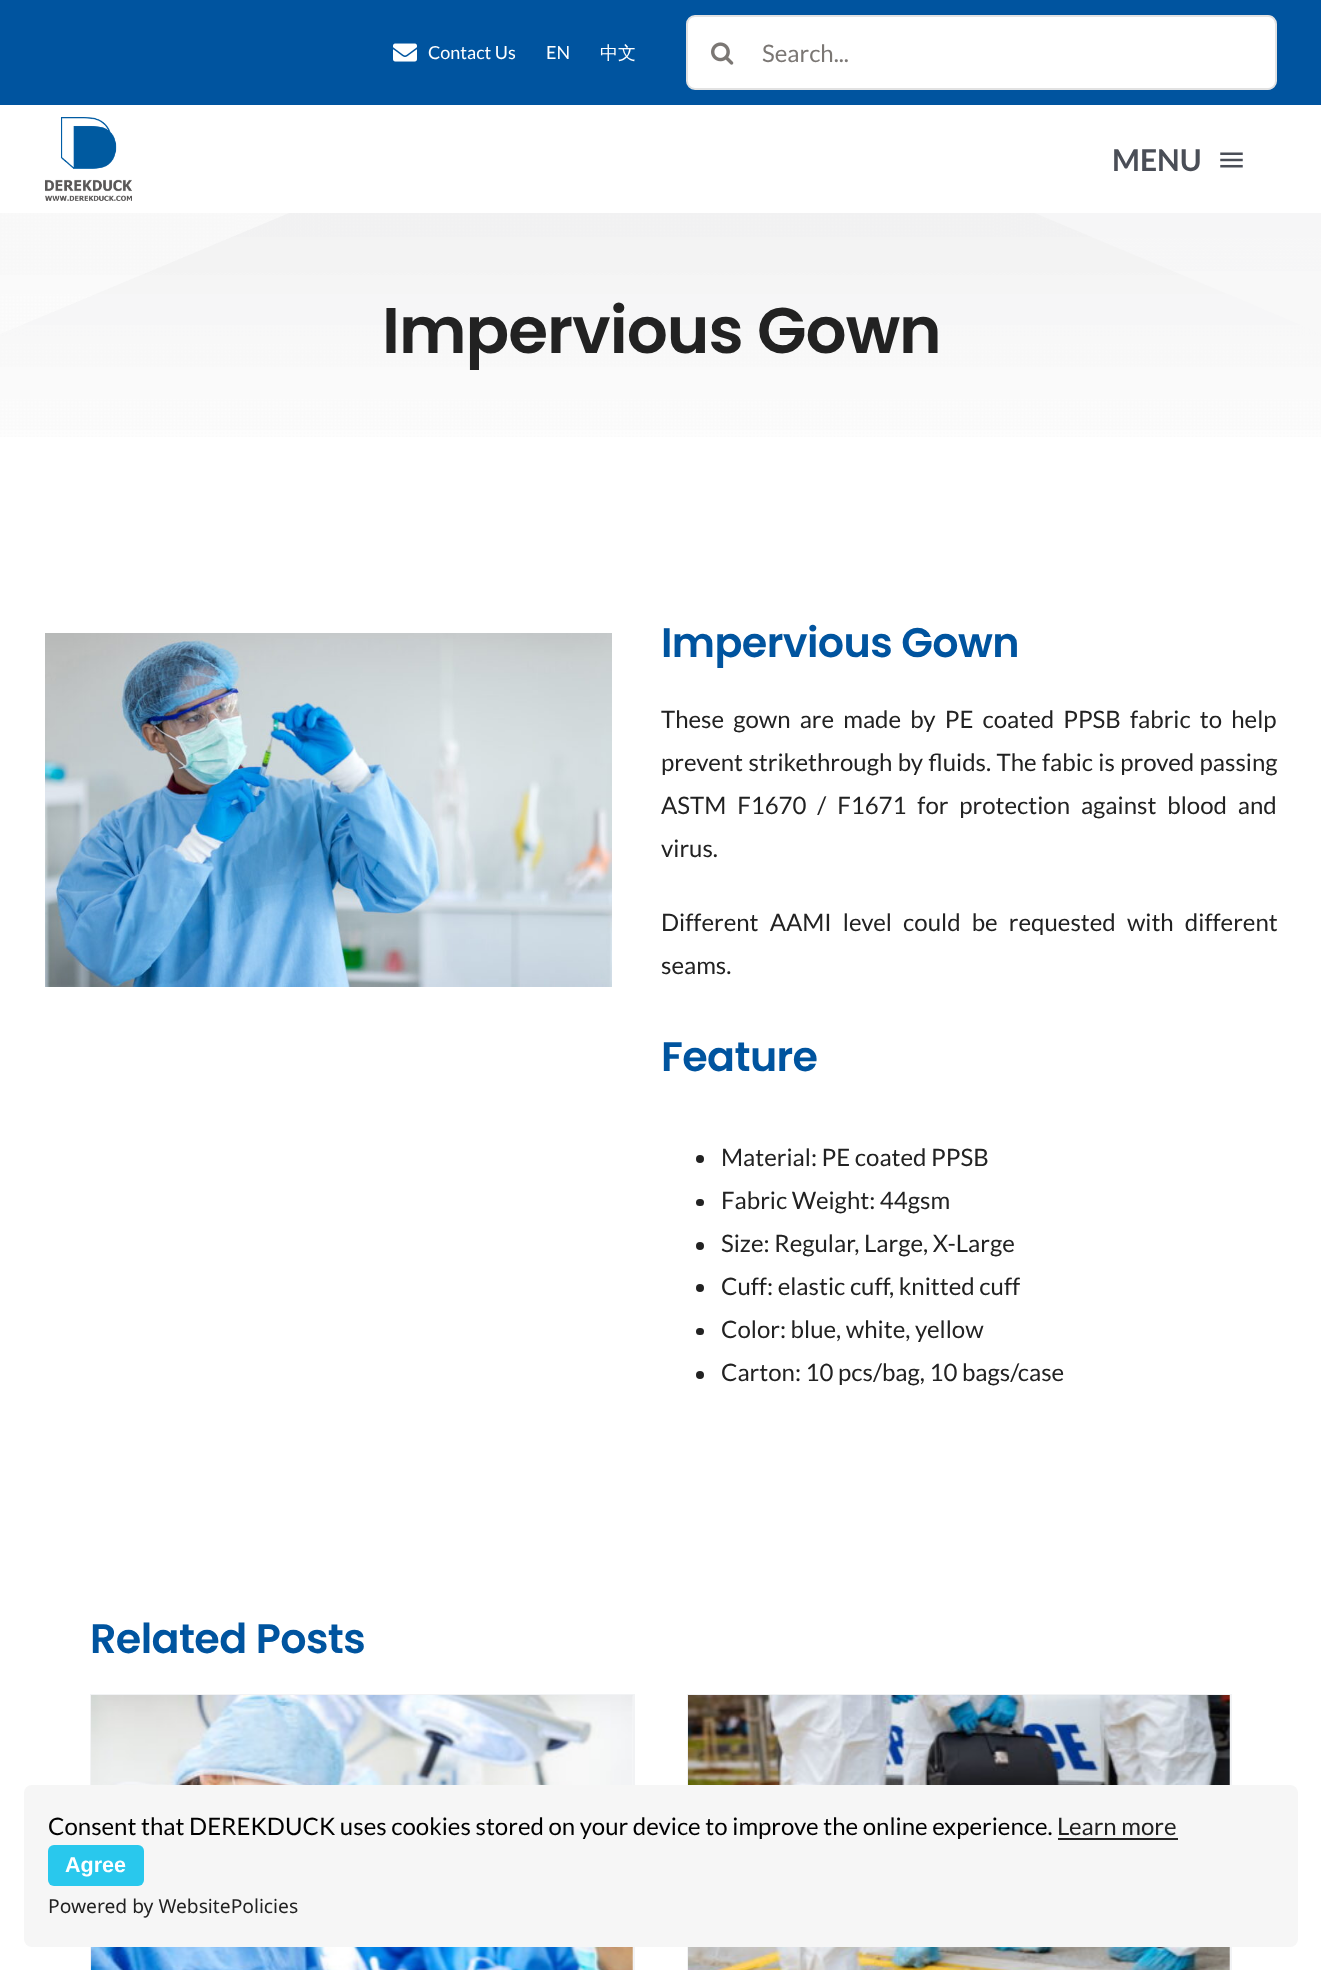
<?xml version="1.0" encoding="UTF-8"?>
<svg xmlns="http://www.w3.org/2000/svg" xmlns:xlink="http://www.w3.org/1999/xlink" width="1321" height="1970">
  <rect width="100%" height="100%" fill="#ffffff" />
  <rect width="1321" height="105" fill="#00549f" />
  <image x="393" y="43" width="24" height="19" xlink:href="image1.png" />
  <rect x="687" y="16" width="589" height="73" rx="8" fill="#ffffff" stroke="#e2e2e2" stroke-width="2" />
  <image x="711" y="42" width="23" height="23" xlink:href="image2.png" />
  <image x="45" y="117" width="87" height="84" xlink:href="image3.png" />
  <image x="1220" y="152" width="23" height="16" xlink:href="image4.png" />
  <image x="0" y="213" width="1321" height="224" xlink:href="image5.png" />
  <image x="45" y="633" width="567" height="354" xlink:href="image6.png" />
  <circle cx="700" cy="1159" r="4" fill="#222222" />
  <rect x="696" y="1199" width="8" height="7" rx="3.5" fill="#222222" />
  <circle cx="700" cy="1246" r="4" fill="#222222" />
  <circle cx="700" cy="1288" r="4" fill="#222222" />
  <rect x="696" y="1328" width="8" height="7" rx="3.5" fill="#222222" />
  <circle cx="700" cy="1375" r="4" fill="#222222" />
  <rect x="90" y="1694" width="545" height="2" fill="#f2f3f5" />
  <rect x="633" y="1694" width="2" height="276" fill="#f2f3f5" />
  <rect x="90" y="1694" width="2" height="276" fill="#f2f3f5" />
  <image x="91" y="1695" width="542" height="275" xlink:href="image7.png" />
  <rect x="687" y="1694" width="545" height="2" fill="#f2f3f5" />
  <rect x="1230" y="1694" width="2" height="276" fill="#f2f3f5" />
  <rect x="687" y="1694" width="2" height="276" fill="#f2f3f5" />
  <image x="688" y="1695" width="542" height="275" xlink:href="image8.png" />
  <rect x="24" y="1785" width="1274" height="162" rx="8" fill="#f6f6f6" />
  <rect x="1058" y="1838" width="120" height="2" fill="#252525" />
  <rect x="48" y="1845" width="96" height="41" rx="6" fill="#29c8ed" />
  <text x="428" y="59" style="font-family: Lato; font-size: 18px; fill: #ffffff">Contact Us</text>
  <text x="546" y="59" style="font-family: Lato; font-size: 18px; fill: #ffffff">EN</text>
  <text x="600" y="59" style="font-family: WenQuanYi Zen Hei; font-size: 18px; font-weight: 500; fill: #ffffff">中文</text>
  <text x="762" y="62" style="font-family: Lato; font-size: 24px; fill: #7b7774">Search...</text>
  <text x="1112" y="171" style="font-family: Lato; font-size: 30px; font-weight: bold; fill: #4a4e57">MENU</text>
  <text x="382" y="353" style="font-family: Poppins; font-size: 64.5px; font-weight: 600; letter-spacing: -1px; fill: #222222">Impervious Gown</text>
  <text x="661" y="657" style="font-family: Poppins; font-size: 41.25px; font-weight: 600; letter-spacing: -0.6px; fill: #00549f">Impervious Gown</text>
  <text x="661" y="728" word-spacing="4.5" style="font-family: Lato; font-size: 24px; fill: #222222">These gown are made by PE coated PPSB fabric to help</text>
  <text x="661" y="771" word-spacing="0.75" style="font-family: Lato; font-size: 24px; fill: #222222">prevent strikethrough by fluids. The fabic is proved passing</text>
  <text x="661" y="814" word-spacing="6.25" style="font-family: Lato; font-size: 24px; fill: #222222">ASTM F1670 / F1671 for protection against blood and</text>
  <text x="661" y="857" style="font-family: Lato; font-size: 24px; fill: #222222">virus.</text>
  <text x="661" y="931" word-spacing="6.5" style="font-family: Lato; font-size: 24px; fill: #222222">Different AAMI level could be requested with different</text>
  <text x="661" y="974" style="font-family: Lato; font-size: 24px; fill: #222222">seams.</text>
  <text x="661" y="1071" style="font-family: Poppins; font-size: 41.25px; font-weight: 600; letter-spacing: -0.6px; fill: #00549f">Feature</text>
  <text x="721" y="1166" style="font-family: Lato; font-size: 24px; fill: #222222">Material: PE coated PPSB</text>
  <text x="721" y="1209" style="font-family: Lato; font-size: 24px; fill: #222222">Fabric Weight: 44gsm</text>
  <text x="721" y="1252" style="font-family: Lato; font-size: 24px; fill: #222222">Size: Regular, Large, X-Large</text>
  <text x="721" y="1295" style="font-family: Lato; font-size: 24px; fill: #222222">Cuff: elastic cuff, knitted cuff</text>
  <text x="721" y="1338" style="font-family: Lato; font-size: 24px; fill: #222222">Color: blue, white, yellow</text>
  <text x="721" y="1381" style="font-family: Lato; font-size: 24px; fill: #222222">Carton: 10 pcs/bag, 10 bags/case</text>
  <text x="90" y="1653" style="font-family: Poppins; font-size: 41.25px; font-weight: 600; letter-spacing: -0.6px; fill: #00549f">Related Posts</text>
  <text x="48" y="1835" style="font-family: Lato; font-size: 24px; fill: #000000">Consent that DEREKDUCK uses cookies stored on your device to improve the online experience.</text>
  <text x="1057" y="1835" style="font-family: Lato; font-size: 24px; fill: #222222">Learn more</text>
  <text x="65" y="1872" style="font-family: Liberation Sans; font-size: 21.5px; font-weight: bold; fill: #ffffff">Agree</text>
  <text x="48" y="1913" style="font-family: Noto Sans; font-size: 19.25px; fill: #222222">Powered by WebsitePolicies</text>
</svg>
